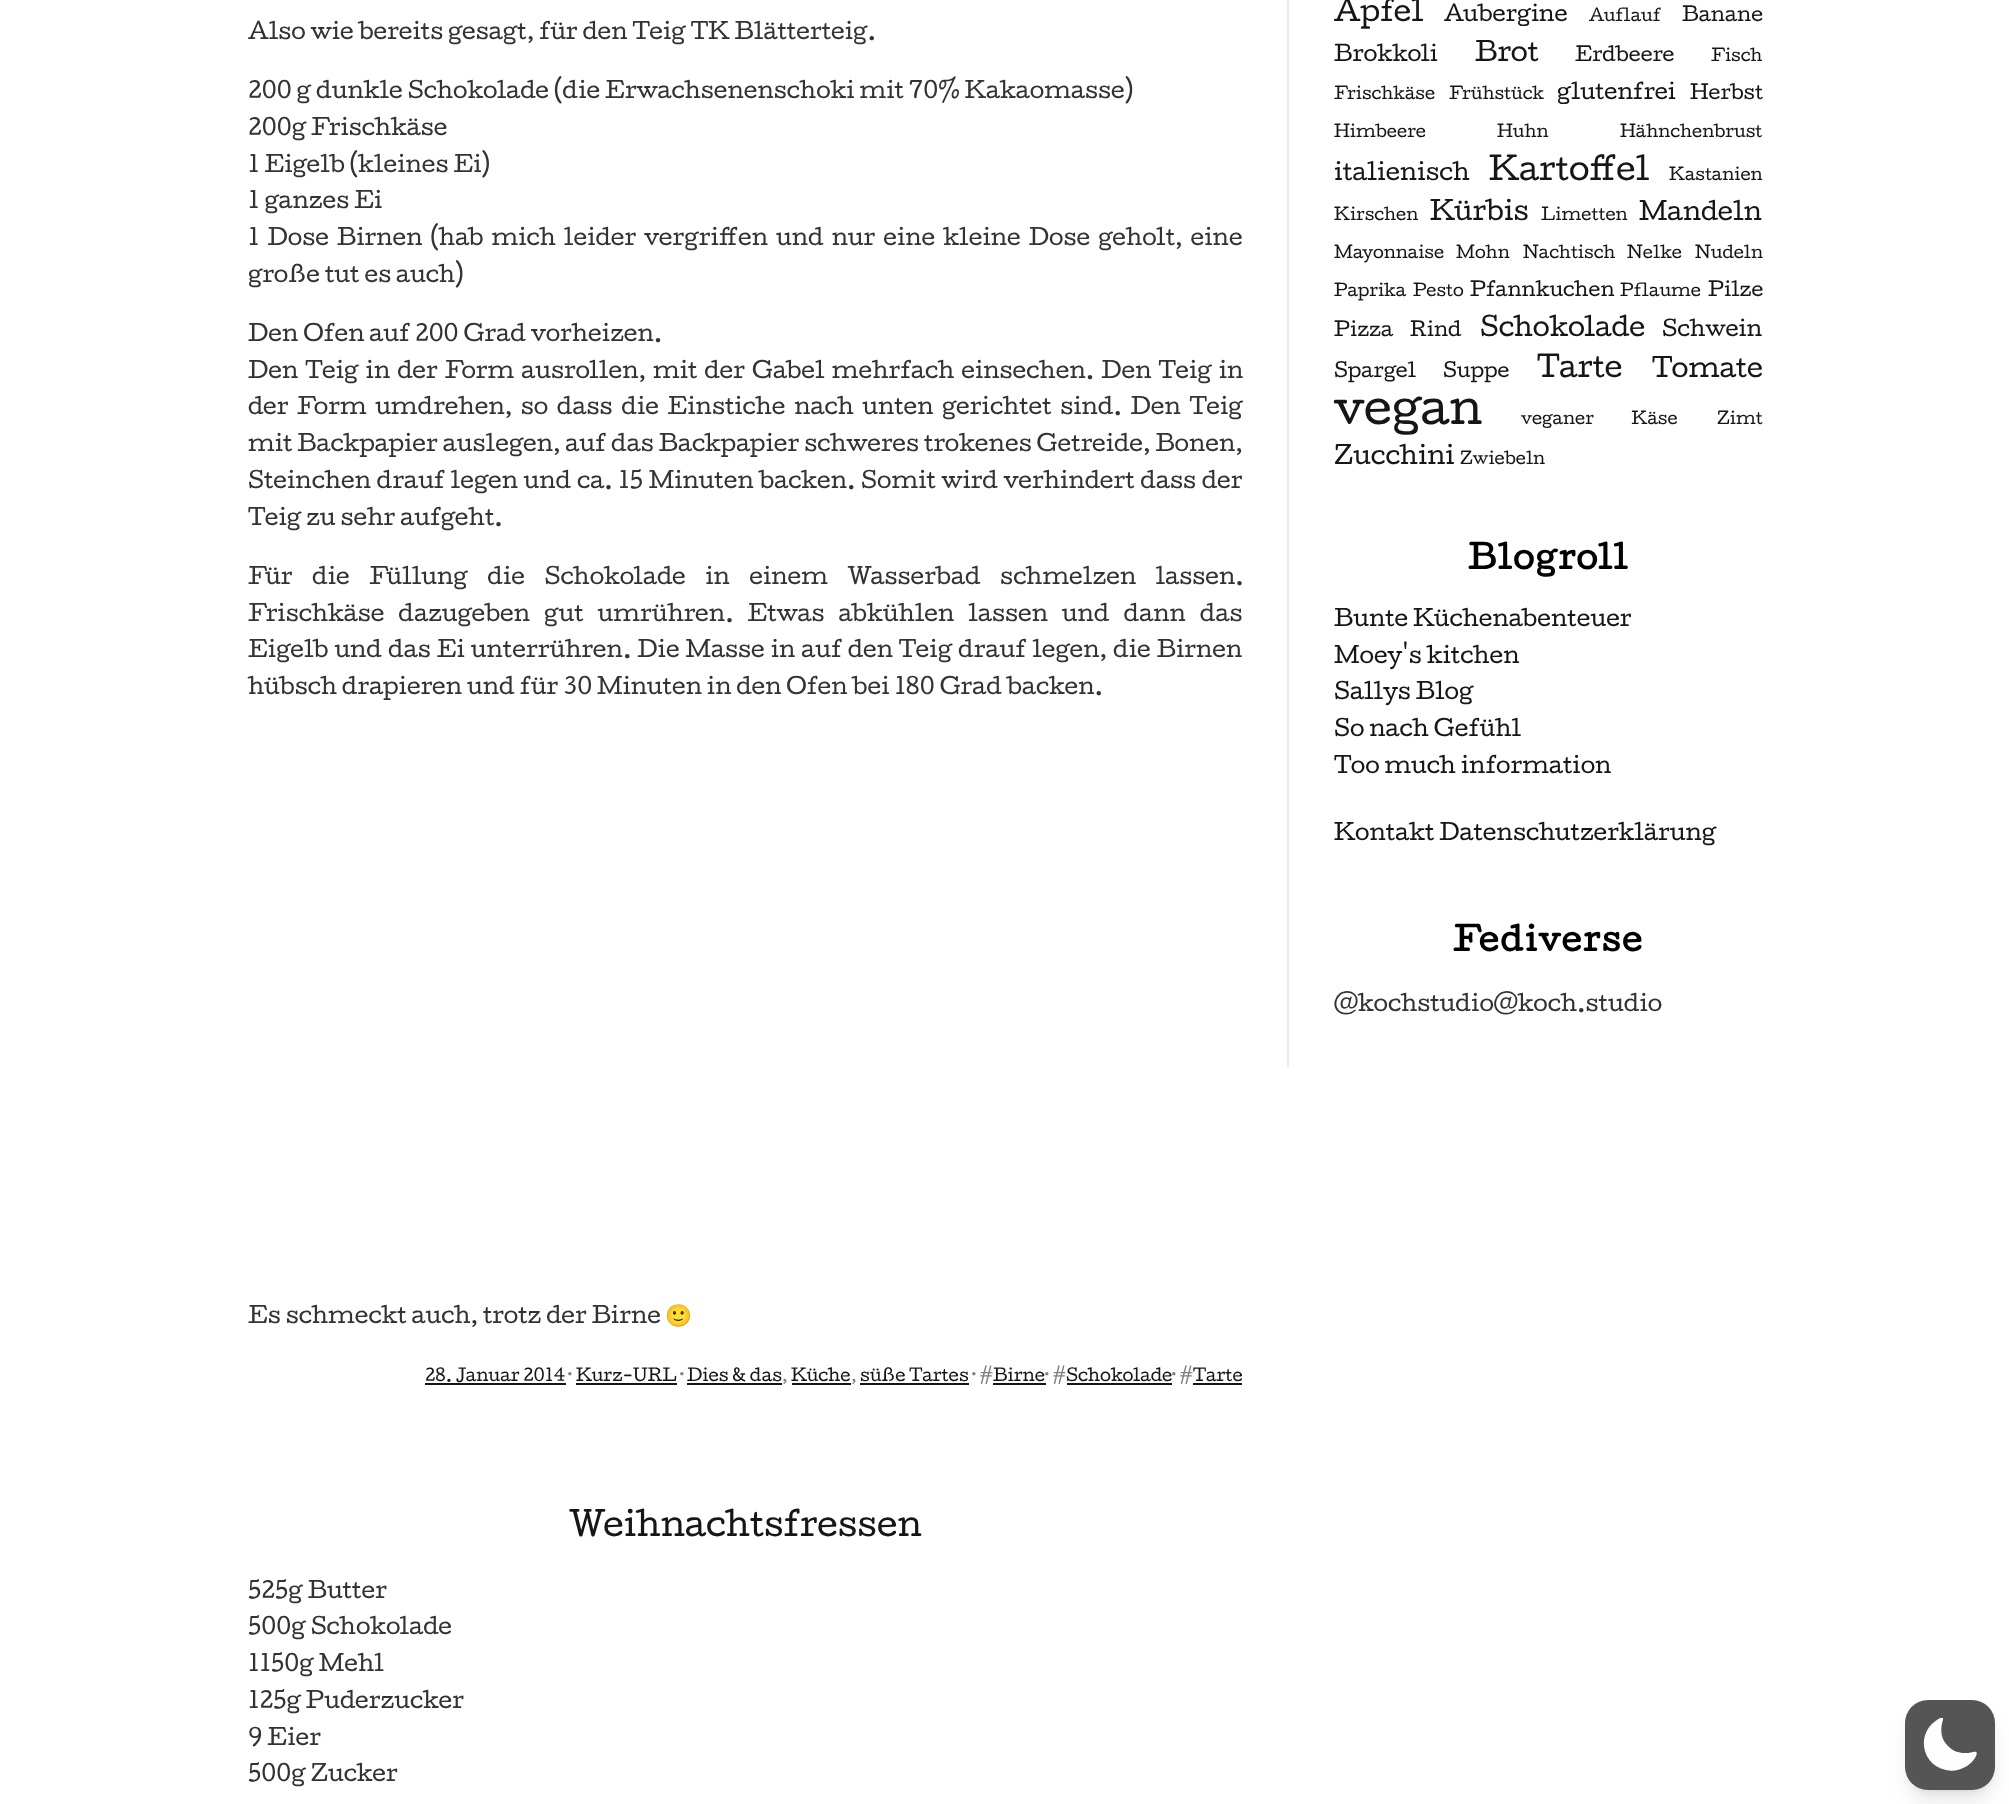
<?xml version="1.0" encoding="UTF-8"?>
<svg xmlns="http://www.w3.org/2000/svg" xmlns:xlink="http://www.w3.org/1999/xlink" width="2009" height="1804">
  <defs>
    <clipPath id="clip1"><rect x="1923" y="1718" width="54" height="54" /></clipPath>
  </defs>
  <rect width="100%" height="100%" fill="#ffffff" />
  <rect x="425" y="1383" width="141" height="2" fill="#161616" />
  <rect x="576" y="1383" width="101" height="2" fill="#161616" />
  <rect x="687" y="1383" width="95" height="2" fill="#161616" />
  <rect x="792" y="1383" width="59" height="2" fill="#161616" />
  <rect x="860" y="1383" width="109" height="2" fill="#161616" />
  <rect x="993" y="1383" width="53" height="2" fill="#161616" />
  <rect x="1067" y="1383" width="105" height="2" fill="#161616" />
  <rect x="1193" y="1383" width="49" height="2" fill="#161616" />
  <rect x="1287" width="2" height="1068" fill="#ebebeb" />
  <rect x="1911" y="1712" width="78" height="78" rx="17" fill="#000000" fill-opacity="0.1" filter="blur(4.5px)" />
  <rect x="1910" y="1719" width="81" height="81" rx="18" fill="#000000" fill-opacity="0.1" filter="blur(11px)" />
  <rect x="1905" y="1700" width="90" height="90" rx="23" fill="#555555" />
  <g clip-path="url(#clip1)">
    <path d="M 1943 1718 c 1 2 -7 16 5 28 c 5 5 10 7 17 7 c 5 1 16 -6 10 5 c -2 3 -5 6 -8 8 c -7 4 -14 6 -21 4 c -25 -5 -30 -37 -9 -50 c 1 -1 4 -3 6 -2 z" fill="#fefefe" fill-rule="evenodd" />
  </g>
  <text x="248" y="39" style="font-family: Cutive; font-size: 21.6px; fill: #333333">Also wie bereits gesagt, für den Teig TK Blätterteig.</text>
  <text x="248" y="98" style="font-family: Cutive; font-size: 21.6px; fill: #333333">200 g dunkle Schokolade (die Erwachsenenschoki mit 70% Kakaomasse)</text>
  <text x="248" y="135" style="font-family: Cutive; font-size: 21.6px; fill: #333333">200g Frischkäse</text>
  <text x="248" y="172" style="font-family: Cutive; font-size: 21.6px; fill: #333333">1 Eigelb (kleines Ei)</text>
  <text x="248" y="208" style="font-family: Cutive; font-size: 21.6px; fill: #333333">1 ganzes Ei</text>
  <text x="248" y="245" word-spacing="3.1" style="font-family: Cutive; font-size: 21.6px; fill: #333333">1 Dose Birnen (hab mich leider vergriffen und nur eine kleine Dose geholt, eine</text>
  <text x="248" y="282" style="font-family: Cutive; font-size: 21.6px; fill: #333333">große tut es auch)</text>
  <text x="248" y="341" style="font-family: Cutive; font-size: 21.6px; fill: #333333">Den Ofen auf 200 Grad vorheizen.</text>
  <text x="248" y="378" word-spacing="2.1" style="font-family: Cutive; font-size: 21.6px; fill: #333333">Den Teig in der Form ausrollen, mit der Gabel mehrfach einsechen. Den Teig in</text>
  <text x="248" y="414" word-spacing="3.6" style="font-family: Cutive; font-size: 21.6px; fill: #333333">der Form umdrehen, so dass die Einstiche nach unten gerichtet sind. Den Teig</text>
  <text x="248" y="451" style="font-family: Cutive; font-size: 21.6px; fill: #333333">mit Backpapier auslegen, auf das Backpapier schweres trokenes Getreide, Bonen,</text>
  <text x="248" y="488" word-spacing="0.75" style="font-family: Cutive; font-size: 21.6px; fill: #333333">Steinchen drauf legen und ca. 15 Minuten backen. Somit wird verhindert dass der</text>
  <text x="248" y="525" style="font-family: Cutive; font-size: 21.6px; fill: #333333">Teig zu sehr aufgeht.</text>
  <text x="248" y="584" word-spacing="14.5" style="font-family: Cutive; font-size: 21.6px; fill: #333333">Für die Füllung die Schokolade in einem Wasserbad schmelzen lassen.</text>
  <text x="248" y="621" word-spacing="9" style="font-family: Cutive; font-size: 21.6px; fill: #333333">Frischkäse dazugeben gut umrühren. Etwas abkühlen lassen und dann das</text>
  <text x="248" y="657" word-spacing="1" style="font-family: Cutive; font-size: 21.6px; fill: #333333">Eigelb und das Ei unterrühren. Die Masse in auf den Teig drauf legen, die Birnen</text>
  <text x="248" y="694" style="font-family: Cutive; font-size: 21.6px; fill: #333333">hübsch drapieren und für 30 Minuten in den Ofen bei 180 Grad backen.</text>
  <text x="248" y="1323" style="font-family: Cutive; font-size: 21.6px; fill: #333333">Es schmeckt auch, trotz der Birne</text>
  <text x="665" y="1323" style="font-family: Noto Color Emoji; font-size: 21.6px; fill: #333333">🙂</text>
  <text x="425" y="1381" style="font-family: Cutive; font-size: 16.25px; fill: #161616">28. Januar 2014</text>
  <text x="568" y="1381" style="font-family: Cutive; font-size: 16.25px; fill: #808080">·</text>
  <text x="576" y="1381" style="font-family: Cutive; font-size: 16.25px; fill: #161616">Kurz-URL</text>
  <text x="680" y="1381" style="font-family: Cutive; font-size: 16.25px; fill: #808080">·</text>
  <text x="687" y="1381" style="font-family: Cutive; font-size: 16.25px; fill: #161616">Dies &amp; das</text>
  <text x="791" y="1381" style="font-family: Cutive; font-size: 16.25px; fill: #161616">Küche</text>
  <text x="860" y="1381" style="font-family: Cutive; font-size: 16.25px; fill: #161616">süße Tartes</text>
  <text x="972" y="1381" style="font-family: Cutive; font-size: 16.25px; fill: #808080">· #</text>
  <text x="993" y="1381" style="font-family: Cutive; font-size: 16.25px; fill: #161616">Birne</text>
  <text x="1045" y="1381" style="font-family: Cutive; font-size: 16.25px; fill: #808080">· #</text>
  <text x="1066" y="1381" style="font-family: Cutive; font-size: 16.25px; fill: #161616">Schokolade</text>
  <text x="1172" y="1381" style="font-family: Cutive; font-size: 16.25px; fill: #808080">· #</text>
  <text x="1193" y="1381" style="font-family: Cutive; font-size: 16.25px; fill: #161616">Tarte</text>
  <text x="782" y="1381" style="font-family: Cutive; font-size: 16.25px; fill: #808080">,</text>
  <text x="851" y="1381" style="font-family: Cutive; font-size: 16.25px; fill: #808080">,</text>
  <text x="569" y="1536" style="font-family: Cutive; font-size: 32.4px; fill: #161616">Weihnachtsfressen</text>
  <text x="248" y="1598" style="font-family: Cutive; font-size: 21.6px; fill: #333333">525g Butter</text>
  <text x="248" y="1634" style="font-family: Cutive; font-size: 21.6px; fill: #333333">500g Schokolade</text>
  <text x="248" y="1671" style="font-family: Cutive; font-size: 21.6px; fill: #333333">1150g Mehl</text>
  <text x="248" y="1708" style="font-family: Cutive; font-size: 21.6px; fill: #333333">125g Puderzucker</text>
  <text x="248" y="1745" style="font-family: Cutive; font-size: 21.6px; fill: #333333">9 Eier</text>
  <text x="248" y="1781" style="font-family: Cutive; font-size: 21.6px; fill: #333333">500g Zucker</text>
  <text x="1334" y="21" style="font-family: Cutive; font-size: 27.5px; fill: #161616">Apfel</text>
  <text x="1444" y="21" style="font-family: Cutive; font-size: 20.75px; fill: #161616">Aubergine</text>
  <text x="1589" y="21" style="font-family: Cutive; font-size: 16px; fill: #161616">Auflauf</text>
  <text x="1682" y="21" style="font-family: Cutive; font-size: 18.75px; fill: #161616">Banane</text>
  <text x="1334" y="61" style="font-family: Cutive; font-size: 20.75px; fill: #161616">Brokkoli</text>
  <text x="1475" y="61" style="font-family: Cutive; font-size: 25.25px; fill: #161616">Brot</text>
  <text x="1575" y="61" style="font-family: Cutive; font-size: 18.75px; fill: #161616">Erdbeere</text>
  <text x="1711" y="61" style="font-family: Cutive; font-size: 16px; fill: #161616">Fisch</text>
  <text x="1334" y="99" style="font-family: Cutive; font-size: 16px; fill: #161616">Frischkäse</text>
  <text x="1449" y="99" style="font-family: Cutive; font-size: 16px; fill: #161616">Frühstück</text>
  <text x="1557" y="99" style="font-family: Cutive; font-size: 20.75px; fill: #161616">glutenfrei</text>
  <text x="1690" y="99" style="font-family: Cutive; font-size: 18.75px; fill: #161616">Herbst</text>
  <text x="1334" y="137" style="font-family: Cutive; font-size: 16px; fill: #161616">Himbeere</text>
  <text x="1497" y="137" style="font-family: Cutive; font-size: 16px; fill: #161616">Huhn</text>
  <text x="1620" y="137" style="font-family: Cutive; font-size: 16px; fill: #161616">Hähnchenbrust</text>
  <text x="1334" y="180" style="font-family: Cutive; font-size: 22.5px; fill: #161616">italienisch</text>
  <text x="1489" y="180" style="font-family: Cutive; font-size: 30.5px; fill: #161616">Kartoffel</text>
  <text x="1669" y="180" style="font-family: Cutive; font-size: 16px; fill: #161616">Kastanien</text>
  <text x="1334" y="220" style="font-family: Cutive; font-size: 16px; fill: #161616">Kirschen</text>
  <text x="1430" y="220" style="font-family: Cutive; font-size: 25.25px; fill: #161616">Kürbis</text>
  <text x="1541" y="220" style="font-family: Cutive; font-size: 16px; fill: #161616">Limetten</text>
  <text x="1639" y="220" style="font-family: Cutive; font-size: 24px; fill: #161616">Mandeln</text>
  <text x="1334" y="258" style="font-family: Cutive; font-size: 16px; fill: #161616">Mayonnaise</text>
  <text x="1456" y="258" style="font-family: Cutive; font-size: 16px; fill: #161616">Mohn</text>
  <text x="1523" y="258" style="font-family: Cutive; font-size: 16px; fill: #161616">Nachtisch</text>
  <text x="1627" y="258" style="font-family: Cutive; font-size: 16px; fill: #161616">Nelke</text>
  <text x="1695" y="258" style="font-family: Cutive; font-size: 16px; fill: #161616">Nudeln</text>
  <text x="1334" y="296" style="font-family: Cutive; font-size: 16px; fill: #161616">Paprika</text>
  <text x="1413" y="296" style="font-family: Cutive; font-size: 16px; fill: #161616">Pesto</text>
  <text x="1470" y="296" style="font-family: Cutive; font-size: 18.75px; fill: #161616">Pfannkuchen</text>
  <text x="1620" y="296" style="font-family: Cutive; font-size: 16px; fill: #161616">Pflaume</text>
  <text x="1708" y="296" style="font-family: Cutive; font-size: 18.75px; fill: #161616">Pilze</text>
  <text x="1334" y="336" style="font-family: Cutive; font-size: 18.75px; fill: #161616">Pizza</text>
  <text x="1410" y="336" style="font-family: Cutive; font-size: 18.75px; fill: #161616">Rind</text>
  <text x="1480" y="336" style="font-family: Cutive; font-size: 25.25px; fill: #161616">Schokolade</text>
  <text x="1662" y="336" style="font-family: Cutive; font-size: 20.75px; fill: #161616">Schwein</text>
  <text x="1334" y="377" style="font-family: Cutive; font-size: 18.75px; fill: #161616">Spargel</text>
  <text x="1443" y="377" style="font-family: Cutive; font-size: 18.75px; fill: #161616">Suppe</text>
  <text x="1537" y="377" style="font-family: Cutive; font-size: 28px; fill: #161616">Tarte</text>
  <text x="1652" y="377" style="font-family: Cutive; font-size: 25.25px; fill: #161616">Tomate</text>
  <text x="1334" y="424" style="font-family: Cutive; font-size: 44px; fill: #161616">vegan</text>
  <text x="1521" y="424" word-spacing="34" style="font-family: Cutive; font-size: 16px; fill: #161616">veganer Käse</text>
  <text x="1717" y="424" style="font-family: Cutive; font-size: 16px; fill: #161616">Zimt</text>
  <text x="1334" y="464" style="font-family: Cutive; font-size: 24px; fill: #161616">Zucchini</text>
  <text x="1460" y="464" style="font-family: Cutive; font-size: 16px; fill: #161616">Zwiebeln</text>
  <text x="1468" y="569" style="font-family: Cutive; font-size: 31.5px; font-weight: bold; letter-spacing: 1.5px; fill: #000000">Blogroll</text>
  <text x="1334" y="626" style="font-family: Cutive; font-size: 21.6px; fill: #161616">Bunte Küchenabenteuer</text>
  <text x="1334" y="663" style="font-family: Cutive; font-size: 21.6px; fill: #161616">Moey's kitchen</text>
  <text x="1334" y="699" style="font-family: Cutive; font-size: 21.6px; fill: #161616">Sallys Blog</text>
  <text x="1334" y="736" style="font-family: Cutive; font-size: 21.6px; fill: #161616">So nach Gefühl</text>
  <text x="1334" y="773" style="font-family: Cutive; font-size: 21.6px; fill: #161616">Too much information</text>
  <text x="1334" y="840" style="font-family: Cutive; font-size: 21.6px; fill: #161616">Kontakt Datenschutzerklärung</text>
  <text x="1453" y="951" style="font-family: Cutive; font-size: 31.5px; font-weight: bold; letter-spacing: 1.5px; fill: #000000">Fediverse</text>
  <text x="1334" y="1011" style="font-family: Cutive; font-size: 21.6px; fill: #333333">@kochstudio@koch.studio</text>
</svg>
